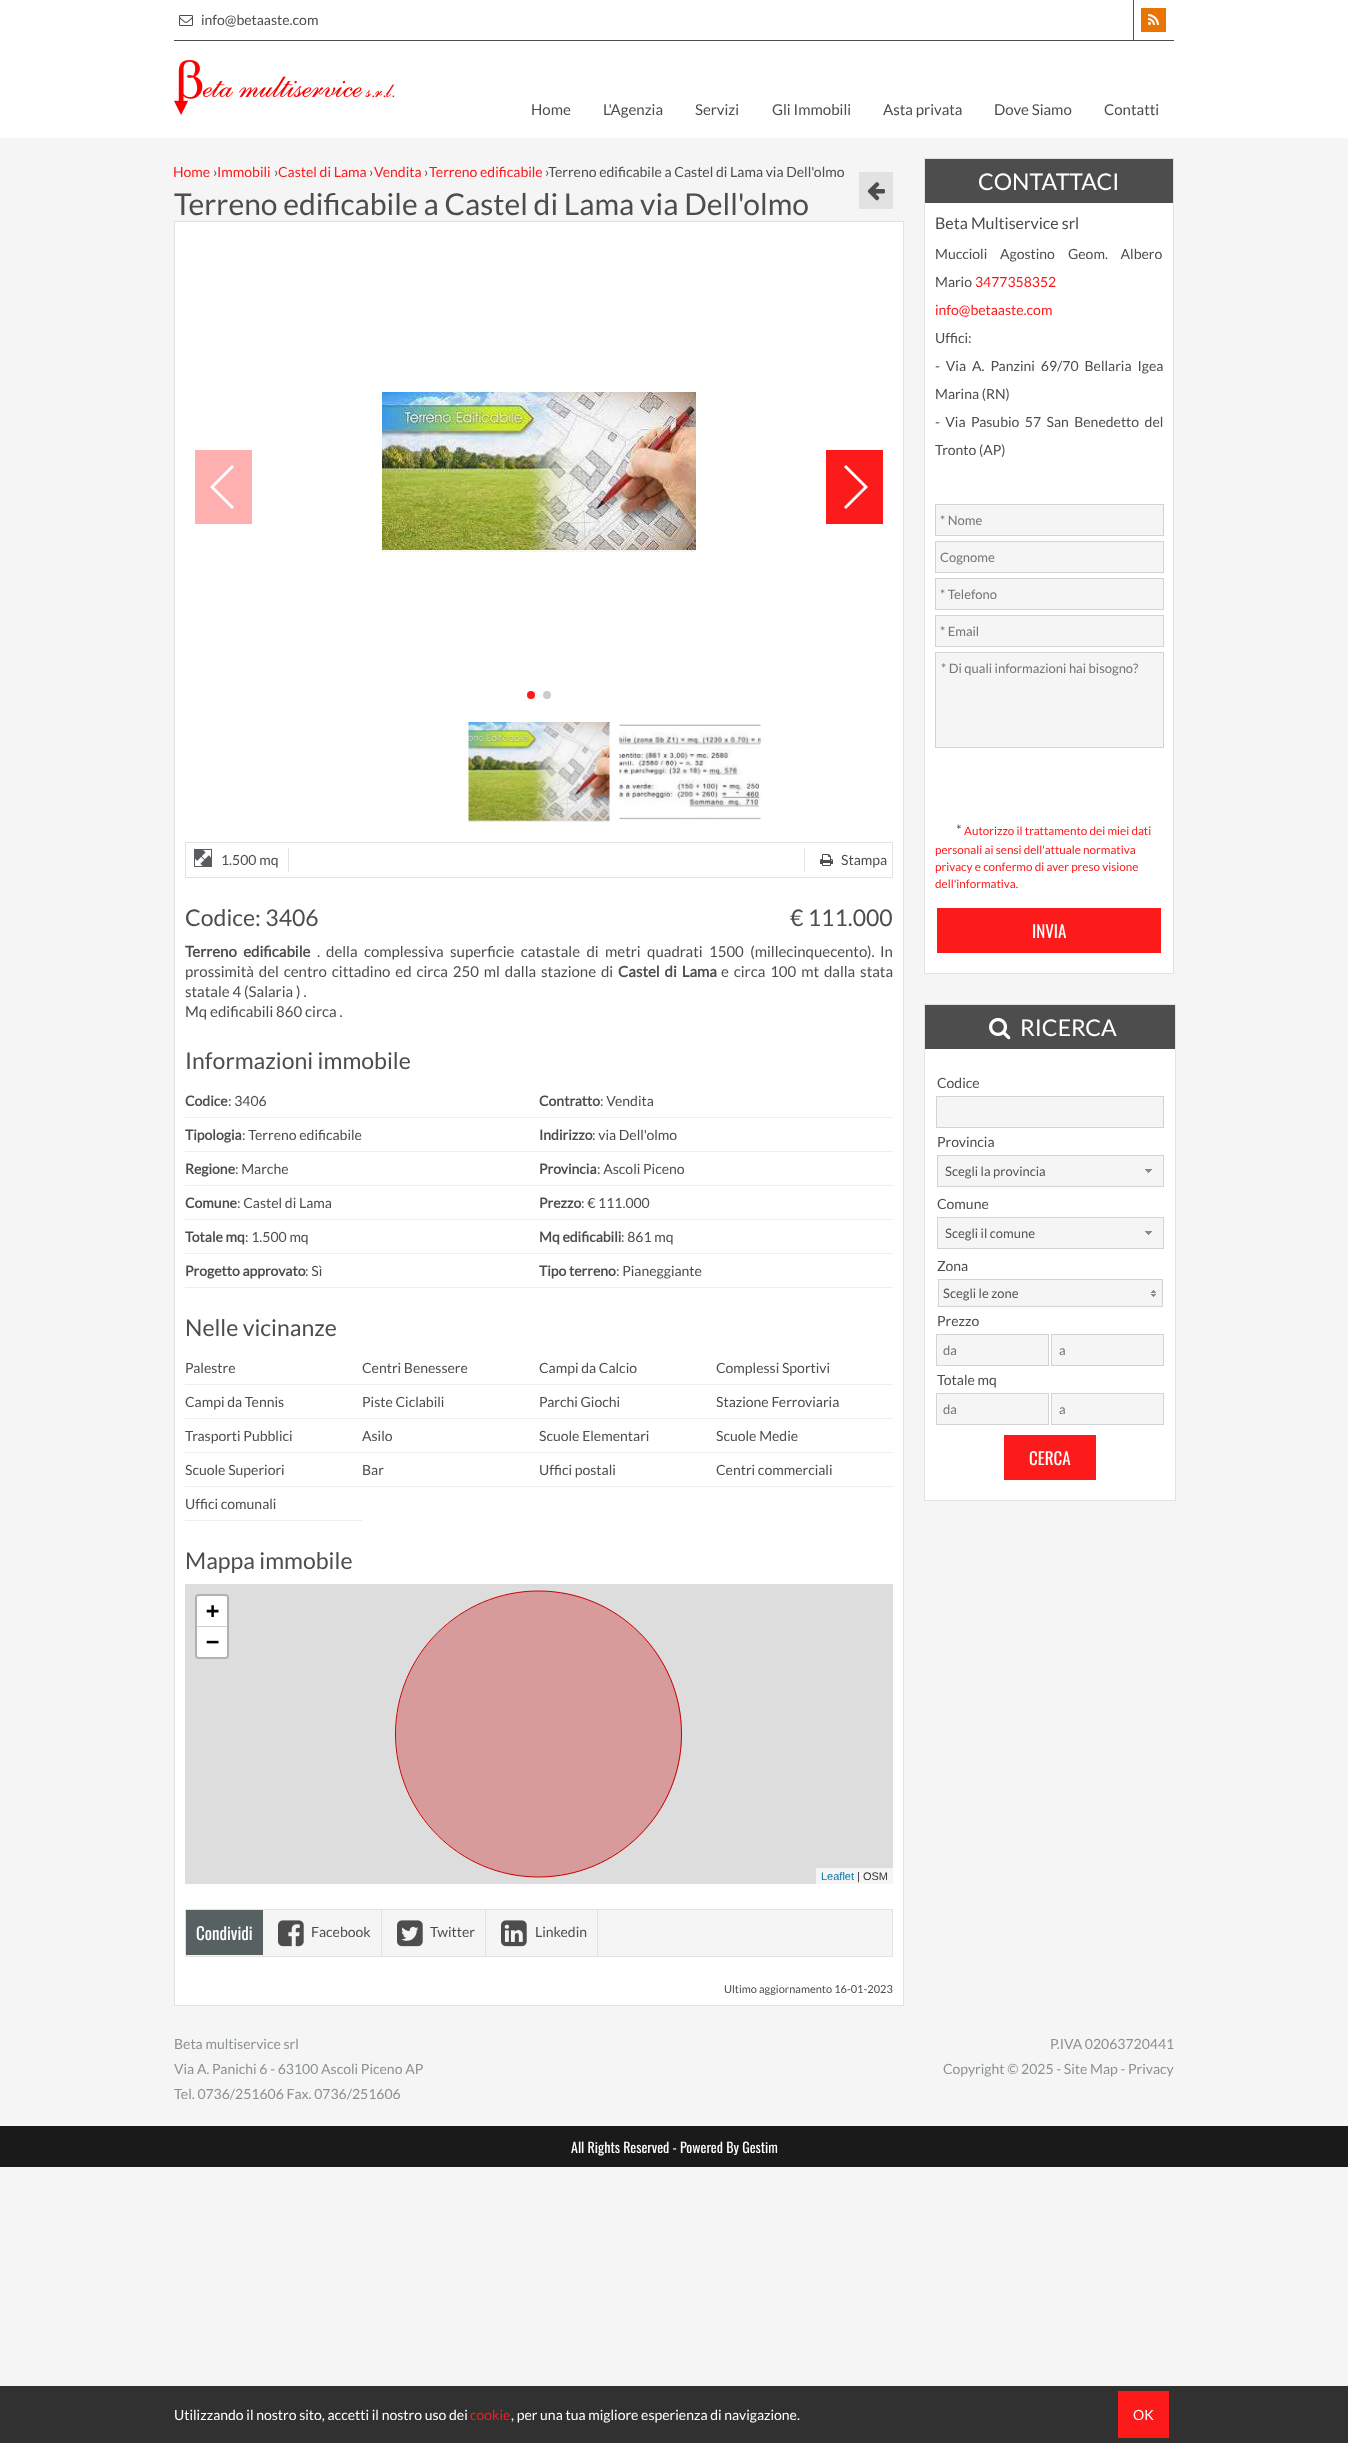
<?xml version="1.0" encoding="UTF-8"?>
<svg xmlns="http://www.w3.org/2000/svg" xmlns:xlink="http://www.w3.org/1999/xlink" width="1348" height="2443">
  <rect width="100%" height="100%" fill="#f5f5f5" />
  <rect width="1348" height="138" fill="#ffffff" />
  <image x="179" y="15" width="14" height="11" xlink:href="image1.png" />
  <rect x="1133" width="1" height="40" fill="#4d4d4d" />
  <rect x="1141" y="8" width="25" height="24" fill="#ea7400" />
  <image x="1148" y="14" width="11" height="11" xlink:href="image2.png" />
  <rect x="174" y="40" width="1000" height="1" fill="#4d4d4d" />
  <image x="174" y="60" width="221" height="55" xlink:href="image3.png" />
  <rect x="174.5" y="221.5" width="729" height="1784" fill="#ffffff" stroke="#e2e2e2" />
  <rect x="859" y="172" width="34" height="37" fill="#e2e2e2" />
  <image x="867" y="182" width="18" height="19" xlink:href="image4.png" />
  <rect x="195" y="450" width="57" height="74" fill="#feafaf" />
  <path d="M 210 487 l 22 -22 l 2 2 l -20 20 l 20 20 l -2 2 z" fill="#ffffff" />
  <image x="382" y="392" width="314" height="160" xlink:href="image5.png" />
  <rect x="826" y="450" width="57" height="74" fill="#fd1a1a" />
  <path d="M 868 487 l -22 22 l -2 -2 l 20 -20 l -20 -20 l 2 -2 z" fill="#ffffff" />
  <circle cx="531" cy="695" r="4" fill="#fd1a1a" />
  <circle cx="547" cy="695" r="4" fill="#cccccc" />
  <image x="468" y="722" width="142" height="100" xlink:href="image6.png" />
  <image x="619" y="724" width="142" height="96" xlink:href="image7.png" />
  <rect x="185.5" y="842.5" width="707" height="35" fill="none" stroke="#e2e2e2" />
  <image x="194" y="848" width="18" height="19" xlink:href="image8.png" />
  <rect x="288" y="848" width="1" height="24" fill="#e2e2e2" />
  <rect x="804" y="848" width="1" height="24" fill="#e2e2e2" />
  <image x="820" y="854" width="13" height="12" xlink:href="image9.png" />
  <rect x="185" y="1117" width="708" height="1" fill="#eeeeee" />
  <rect x="185" y="1151" width="708" height="1" fill="#eeeeee" />
  <rect x="185" y="1185" width="708" height="1" fill="#eeeeee" />
  <rect x="185" y="1219" width="708" height="1" fill="#eeeeee" />
  <rect x="185" y="1253" width="708" height="1" fill="#eeeeee" />
  <rect x="185" y="1287" width="708" height="1" fill="#eeeeee" />
  <rect x="185" y="1384" width="708" height="1" fill="#eeeeee" />
  <rect x="185" y="1418" width="708" height="1" fill="#eeeeee" />
  <rect x="185" y="1452" width="708" height="1" fill="#eeeeee" />
  <rect x="185" y="1486" width="708" height="1" fill="#eeeeee" />
  <rect x="185" y="1520" width="177" height="1" fill="#eeeeee" />
  <rect x="185" y="1584" width="708" height="300" fill="#dddddd" />
  <path d="M 396 1734 c 0 79 64 143 143 143 c 79 0 143 -64 143 -143 c 0 -79 -64 -143 -143 -143 c -79 0 -143 64 -143 143" fill="#d89b9b" fill-rule="evenodd" />
  <path d="M 395.5 1734 c 0 79 64 143 143 143 c 79 0 143 -64 143 -143 c 0 -79 -64 -143 -143 -143 c -79 0 -143 64 -143 143" fill="none" stroke="#cc0000" stroke-linecap="round" stroke-linejoin="round" />
  <rect x="196" y="1595" width="32" height="63" rx="3" fill="none" stroke="#b1b1b1" stroke-width="2" />
  <path d="M 199 1596 h 26 c 1 0 2 1 2 2 v 29 h -30 v -29 c 0 -1 1 -2 2 -2 z" fill="#ffffff" />
  <rect x="197" y="1626" width="30" height="1" fill="#cccccc" />
  <path d="M 197 1627 h 30 v 28 c 0 1 -1 2 -2 2 h -26 c -1 0 -2 -1 -2 -2 z" fill="#ffffff" />
  <rect x="816" y="1868" width="77" height="16" fill="#f5f5f5" />
  <rect x="185.5" y="1909.5" width="707" height="47" fill="#f5f5f5" stroke="#e2e2e2" />
  <rect x="186" y="1910" width="77" height="45" fill="#586162" />
  <rect x="381" y="1910" width="1" height="46" fill="#e2e2e2" />
  <image x="278" y="1920" width="26" height="27" xlink:href="image10.png" />
  <rect x="485" y="1910" width="1" height="46" fill="#e2e2e2" />
  <image x="397" y="1920" width="26" height="27" xlink:href="image11.png" />
  <rect x="597" y="1910" width="1" height="46" fill="#e2e2e2" />
  <image x="501" y="1920" width="26" height="27" xlink:href="image12.png" />
  <rect x="925" y="203" width="248" height="770" fill="#ffffff" />
  <rect x="924.5" y="158.5" width="249" height="815" fill="none" stroke="#e2e2e2" />
  <rect x="925" y="159" width="248" height="44" fill="#4d4d4d" />
  <rect x="935.5" y="504.5" width="228" height="31" fill="#f5f5f5" stroke="#d3d3d3" />
  <rect x="935.5" y="541.5" width="228" height="31" fill="#f5f5f5" stroke="#d3d3d3" />
  <rect x="935.5" y="578.5" width="228" height="31" fill="#f5f5f5" stroke="#d3d3d3" />
  <rect x="935.5" y="615.5" width="228" height="31" fill="#f5f5f5" stroke="#d3d3d3" />
  <rect x="935.5" y="652.5" width="228" height="95" fill="#f5f5f5" stroke="#d3d3d3" />
  <rect x="937" y="908" width="224" height="45" fill="#fd1a1a" />
  <rect x="925" y="1049" width="250" height="451" fill="#ffffff" />
  <rect x="924.5" y="1004.5" width="251" height="496" fill="none" stroke="#e2e2e2" />
  <rect x="925" y="1005" width="250" height="44" fill="#4d4d4d" />
  <image x="989" y="1017" width="22" height="23" xlink:href="image13.png" />
  <rect x="936.5" y="1096.5" width="227" height="31" fill="#f5f5f5" stroke="#d3d3d3" />
  <rect x="937.5" y="1155.5" width="226" height="31" fill="#f5f5f5" stroke="#d3d3d3" />
  <image x="1145" y="1169" width="7" height="4" xlink:href="image14.png" />
  <rect x="937.5" y="1217.5" width="226" height="31" fill="#f5f5f5" stroke="#d3d3d3" />
  <image x="1145" y="1231" width="7" height="4" xlink:href="image14.png" />
  <rect x="938.5" y="1279.5" width="224" height="27" fill="#f5f5f5" stroke="#d3d3d3" />
  <image x="1151" y="1290" width="5" height="7" xlink:href="image15.png" />
  <rect x="936.5" y="1334.5" width="112" height="31" fill="#f5f5f5" stroke="#d3d3d3" />
  <rect x="1051.5" y="1334.5" width="112" height="31" fill="#f5f5f5" stroke="#d3d3d3" />
  <rect x="936.5" y="1393.5" width="112" height="31" fill="#f5f5f5" stroke="#d3d3d3" />
  <rect x="1051.5" y="1393.5" width="112" height="31" fill="#f5f5f5" stroke="#d3d3d3" />
  <rect x="1004" y="1435" width="92" height="45" fill="#fd1a1a" />
  <rect y="2126" width="1348" height="41" fill="#1a1a1a" />
  <rect y="2386" width="1348" height="57" fill="#313131" />
  <rect x="1118" y="2391" width="51" height="47" fill="#fd1a1a" />
  <text x="201" y="25" style="font-family: Lato; font-size: 14px; fill: #4d4d4d">info@betaaste.com</text>
  <text x="531" y="115" style="font-family: Lato; font-size: 15px; fill: #4d4d4d">Home</text>
  <text x="603" y="115" style="font-family: Lato; font-size: 15px; fill: #4d4d4d">L'Agenzia</text>
  <text x="695" y="115" style="font-family: Lato; font-size: 15px; fill: #4d4d4d">Servizi</text>
  <text x="772" y="115" style="font-family: Lato; font-size: 15px; fill: #4d4d4d">Gli Immobili</text>
  <text x="883" y="115" style="font-family: Lato; font-size: 15px; fill: #4d4d4d">Asta privata</text>
  <text x="994" y="115" style="font-family: Lato; font-size: 15px; fill: #4d4d4d">Dove Siamo</text>
  <text x="1104" y="115" style="font-family: Lato; font-size: 15px; fill: #4d4d4d">Contatti</text>
  <text x="173" y="177" style="font-family: Lato; font-size: 14px; fill: #fd1a1a">Home</text>
  <text x="213" y="177" style="font-family: Lato; font-size: 14px; fill: #4d4d4d">›</text>
  <text x="217" y="177" style="font-family: Lato; font-size: 14px; fill: #fd1a1a">Immobili</text>
  <text x="274" y="177" style="font-family: Lato; font-size: 14px; fill: #4d4d4d">›</text>
  <text x="278" y="177" style="font-family: Lato; font-size: 14px; fill: #fd1a1a">Castel di Lama</text>
  <text x="369" y="177" style="font-family: Lato; font-size: 14px; fill: #4d4d4d">›</text>
  <text x="374" y="177" style="font-family: Lato; font-size: 14px; fill: #fd1a1a">Vendita</text>
  <text x="424" y="177" style="font-family: Lato; font-size: 14px; fill: #4d4d4d">›</text>
  <text x="429" y="177" style="font-family: Lato; font-size: 14px; fill: #fd1a1a">Terreno edificabile</text>
  <text x="545" y="177" style="font-family: Lato; font-size: 14px; fill: #4d4d4d">›Terreno edificabile a Castel di Lama via Dell'olmo</text>
  <text x="174" y="215" style="font-family: Lato; font-size: 30px; fill: #4d4d4d">Terreno edificabile a Castel di Lama via Dell'olmo</text>
  <text x="221" y="865" style="font-family: Lato; font-size: 14px; fill: #4d4d4d">1.500 mq</text>
  <text x="841" y="865" style="font-family: Lato; font-size: 14px; fill: #4d4d4d">Stampa</text>
  <text x="185" y="926" style="font-family: Lato; font-size: 23px; fill: #4d4d4d">Codice: 3406</text>
  <text x="790" y="926" style="font-family: Lato; font-size: 23px; fill: #4d4d4d">€ 111.000</text>
  <text x="185" y="957" word-spacing="3.5" style="font-family: Lato; font-size: 15px; font-weight: bold; fill: #4d4d4d">Terreno edificabile</text>
  <text x="317" y="957" style="font-family: Lato; font-size: 15px; fill: #4d4d4d">.</text>
  <text x="326" y="957" word-spacing="3.5" style="font-family: Lato; font-size: 15px; fill: #4d4d4d">della complessiva superficie catastale di metri quadrati 1500 (millecinquecento).</text>
  <text x="880" y="957" style="font-family: Lato; font-size: 15px; fill: #4d4d4d">In</text>
  <text x="185" y="977" word-spacing="2" style="font-family: Lato; font-size: 15px; fill: #4d4d4d">prossimità del centro cittadino ed circa 250 ml dalla stazione di</text>
  <text x="618" y="977" word-spacing="2" style="font-family: Lato; font-size: 15px; font-weight: bold; fill: #4d4d4d">Castel di Lama</text>
  <text x="721" y="977" word-spacing="2" style="font-family: Lato; font-size: 15px; fill: #4d4d4d">e circa 100 mt dalla stata</text>
  <text x="185" y="997" style="font-family: Lato; font-size: 15px; fill: #4d4d4d">statale 4 (Salaria ) .</text>
  <text x="185" y="1017" style="font-family: Lato; font-size: 15px; fill: #4d4d4d">Mq edificabili 860 circa .</text>
  <text x="185" y="1069" style="font-family: Lato; font-size: 23px; fill: #4d4d4d">Informazioni immobile</text>
  <text x="185" y="1106" style="font-family: Lato; font-size: 14px; font-weight: bold; fill: #4d4d4d">Codice</text>
  <text x="228" y="1106" style="font-family: Lato; font-size: 14px; fill: #4d4d4d">: 3406</text>
  <text x="539" y="1106" style="font-family: Lato; font-size: 14px; font-weight: bold; fill: #4d4d4d">Contratto</text>
  <text x="600" y="1106" style="font-family: Lato; font-size: 14px; fill: #4d4d4d">: Vendita</text>
  <text x="185" y="1140" style="font-family: Lato; font-size: 14px; font-weight: bold; fill: #4d4d4d">Tipologia</text>
  <text x="242" y="1140" style="font-family: Lato; font-size: 14px; fill: #4d4d4d">: Terreno edificabile</text>
  <text x="539" y="1140" style="font-family: Lato; font-size: 14px; font-weight: bold; fill: #4d4d4d">Indirizzo</text>
  <text x="592" y="1140" style="font-family: Lato; font-size: 14px; fill: #4d4d4d">: via Dell'olmo</text>
  <text x="185" y="1174" style="font-family: Lato; font-size: 14px; font-weight: bold; fill: #4d4d4d">Regione</text>
  <text x="235" y="1174" style="font-family: Lato; font-size: 14px; fill: #4d4d4d">: Marche</text>
  <text x="539" y="1174" style="font-family: Lato; font-size: 14px; font-weight: bold; fill: #4d4d4d">Provincia</text>
  <text x="597" y="1174" style="font-family: Lato; font-size: 14px; fill: #4d4d4d">: Ascoli Piceno</text>
  <text x="185" y="1208" style="font-family: Lato; font-size: 14px; font-weight: bold; fill: #4d4d4d">Comune</text>
  <text x="237" y="1208" style="font-family: Lato; font-size: 14px; fill: #4d4d4d">: Castel di Lama</text>
  <text x="539" y="1208" style="font-family: Lato; font-size: 14px; font-weight: bold; fill: #4d4d4d">Prezzo</text>
  <text x="581" y="1208" style="font-family: Lato; font-size: 14px; fill: #4d4d4d">: € 111.000</text>
  <text x="185" y="1242" style="font-family: Lato; font-size: 14px; font-weight: bold; fill: #4d4d4d">Totale mq</text>
  <text x="245" y="1242" style="font-family: Lato; font-size: 14px; fill: #4d4d4d">: 1.500 mq</text>
  <text x="539" y="1242" style="font-family: Lato; font-size: 14px; font-weight: bold; fill: #4d4d4d">Mq edificabili</text>
  <text x="621" y="1242" style="font-family: Lato; font-size: 14px; fill: #4d4d4d">: 861 mq</text>
  <text x="185" y="1276" style="font-family: Lato; font-size: 14px; font-weight: bold; fill: #4d4d4d">Progetto approvato</text>
  <text x="305" y="1276" style="font-family: Lato; font-size: 14px; fill: #4d4d4d">: Sì</text>
  <text x="539" y="1276" style="font-family: Lato; font-size: 14px; font-weight: bold; fill: #4d4d4d">Tipo terreno</text>
  <text x="616" y="1276" style="font-family: Lato; font-size: 14px; fill: #4d4d4d">: Pianeggiante</text>
  <text x="185" y="1336" style="font-family: Lato; font-size: 23px; fill: #4d4d4d">Nelle vicinanze</text>
  <text x="185" y="1373" style="font-family: Lato; font-size: 14px; fill: #4d4d4d">Palestre</text>
  <text x="362" y="1373" style="font-family: Lato; font-size: 14px; fill: #4d4d4d">Centri Benessere</text>
  <text x="539" y="1373" style="font-family: Lato; font-size: 14px; fill: #4d4d4d">Campi da Calcio</text>
  <text x="716" y="1373" style="font-family: Lato; font-size: 14px; fill: #4d4d4d">Complessi Sportivi</text>
  <text x="185" y="1407" style="font-family: Lato; font-size: 14px; fill: #4d4d4d">Campi da Tennis</text>
  <text x="362" y="1407" style="font-family: Lato; font-size: 14px; fill: #4d4d4d">Piste Ciclabili</text>
  <text x="539" y="1407" style="font-family: Lato; font-size: 14px; fill: #4d4d4d">Parchi Giochi</text>
  <text x="716" y="1407" style="font-family: Lato; font-size: 14px; fill: #4d4d4d">Stazione Ferroviaria</text>
  <text x="185" y="1441" style="font-family: Lato; font-size: 14px; fill: #4d4d4d">Trasporti Pubblici</text>
  <text x="362" y="1441" style="font-family: Lato; font-size: 14px; fill: #4d4d4d">Asilo</text>
  <text x="539" y="1441" style="font-family: Lato; font-size: 14px; fill: #4d4d4d">Scuole Elementari</text>
  <text x="716" y="1441" style="font-family: Lato; font-size: 14px; fill: #4d4d4d">Scuole Medie</text>
  <text x="185" y="1475" style="font-family: Lato; font-size: 14px; fill: #4d4d4d">Scuole Superiori</text>
  <text x="362" y="1475" style="font-family: Lato; font-size: 14px; fill: #4d4d4d">Bar</text>
  <text x="539" y="1475" style="font-family: Lato; font-size: 14px; fill: #4d4d4d">Uffici postali</text>
  <text x="716" y="1475" style="font-family: Lato; font-size: 14px; fill: #4d4d4d">Centri commerciali</text>
  <text x="185" y="1509" style="font-family: Lato; font-size: 14px; fill: #4d4d4d">Uffici comunali</text>
  <text x="185" y="1569" style="font-family: Lato; font-size: 23px; fill: #4d4d4d">Mappa immobile</text>
  <text x="206" y="1618" style="font-family: DejaVu Sans Mono; font-size: 22px; font-weight: bold; fill: #000000">+</text>
  <text x="206" y="1649" style="font-family: DejaVu Sans Mono; font-size: 22px; font-weight: bold; fill: #000000">−</text>
  <text x="821" y="1880" style="font-family: Liberation Sans; font-size: 11px; fill: #0078a8">Leaflet</text>
  <text x="857" y="1880" style="font-family: Liberation Sans; font-size: 11px; fill: #333333">| OSM</text>
  <text x="196" y="1940" style="font-family: Oswald; font-size: 17px; fill: #ffffff">Condividi</text>
  <text x="311" y="1937" style="font-family: Lato; font-size: 14px; fill: #4d4d4d">Facebook</text>
  <text x="430" y="1937" style="font-family: Lato; font-size: 14px; fill: #4d4d4d">Twitter</text>
  <text x="535" y="1937" style="font-family: Lato; font-size: 14px; fill: #4d4d4d">Linkedin</text>
  <text x="724" y="1993" style="font-family: Lato; font-size: 11px; fill: #4d4d4d">Ultimo aggiornamento 16-01-2023</text>
  <text x="978" y="190" style="font-family: Lato; font-size: 23px; fill: #ffffff">CONTATTACI</text>
  <text x="935" y="229" style="font-family: Lato; font-size: 16px; fill: #4d4d4d">Beta Multiservice srl</text>
  <text x="935" y="259" word-spacing="10" style="font-family: Lato; font-size: 14px; fill: #4d4d4d">Muccioli Agostino</text>
  <text x="1068" y="259" word-spacing="10" style="font-family: Lato; font-size: 14px; fill: #4d4d4d">Geom. Albero</text>
  <text x="935" y="287" style="font-family: Lato; font-size: 14px; fill: #4d4d4d">Mario</text>
  <text x="975" y="287" style="font-family: Lato; font-size: 14px; fill: #fd1a1a">3477358352</text>
  <text x="935" y="315" style="font-family: Lato; font-size: 14px; fill: #fd1a1a">info@betaaste.com</text>
  <text x="935" y="343" style="font-family: Lato; font-size: 14px; fill: #4d4d4d">Uffici:</text>
  <text x="935" y="371" word-spacing="3.25" style="font-family: Lato; font-size: 14px; fill: #4d4d4d">- Via A. Panzini 69/70 Bellaria Igea</text>
  <text x="935" y="399" style="font-family: Lato; font-size: 14px; fill: #4d4d4d">Marina (RN)</text>
  <text x="935" y="427" word-spacing="2.75" style="font-family: Lato; font-size: 14px; fill: #4d4d4d">- Via Pasubio 57 San Benedetto del</text>
  <text x="935" y="455" style="font-family: Lato; font-size: 14px; fill: #4d4d4d">Tronto (AP)</text>
  <text x="940" y="525" style="font-family: Lato; font-size: 13px; fill: #757575">* Nome</text>
  <text x="940" y="562" style="font-family: Lato; font-size: 13px; fill: #757575">Cognome</text>
  <text x="940" y="599" style="font-family: Lato; font-size: 13px; fill: #757575">* Telefono</text>
  <text x="940" y="636" style="font-family: Lato; font-size: 13px; fill: #757575">* Email</text>
  <text x="941" y="673" style="font-family: Lato; font-size: 13px; fill: #757575">* Di quali informazioni hai bisogno?</text>
  <text x="956" y="835" style="font-family: Lato; font-size: 14px; fill: #4d4d4d">*</text>
  <text x="964" y="835" style="font-family: Lato; font-size: 11.7px; fill: #fd1a1a">Autorizzo il trattamento dei miei dati</text>
  <text x="935" y="854" style="font-family: Lato; font-size: 11.7px; fill: #fd1a1a">personali ai sensi dell'attuale normativa</text>
  <text x="935" y="871" style="font-family: Lato; font-size: 11.7px; fill: #fd1a1a">privacy e confermo di aver preso visione</text>
  <text x="935" y="888" style="font-family: Lato; font-size: 11.7px; fill: #fd1a1a">dell'informativa.</text>
  <text x="1032" y="938" style="font-family: Oswald; font-size: 17px; fill: #ffffff">INVIA</text>
  <text x="1020" y="1036" style="font-family: Lato; font-size: 23px; fill: #ffffff">RICERCA</text>
  <text x="937" y="1088" style="font-family: Lato; font-size: 14px; fill: #4d4d4d">Codice</text>
  <text x="937" y="1147" style="font-family: Lato; font-size: 14px; fill: #4d4d4d">Provincia</text>
  <text x="945" y="1176" style="font-family: Lato; font-size: 13px; fill: #555555">Scegli la provincia</text>
  <text x="937" y="1209" style="font-family: Lato; font-size: 14px; fill: #4d4d4d">Comune</text>
  <text x="945" y="1238" style="font-family: Lato; font-size: 13px; fill: #555555">Scegli il comune</text>
  <text x="937" y="1271" style="font-family: Lato; font-size: 14px; fill: #4d4d4d">Zona</text>
  <text x="943" y="1298" style="font-family: Lato; font-size: 13px; fill: #555555">Scegli le zone</text>
  <text x="937" y="1326" style="font-family: Lato; font-size: 14px; fill: #4d4d4d">Prezzo</text>
  <text x="943" y="1355" style="font-family: Lato; font-size: 13px; fill: #757575">da</text>
  <text x="1059" y="1355" style="font-family: Lato; font-size: 13px; fill: #757575">a</text>
  <text x="937" y="1385" style="font-family: Lato; font-size: 14px; fill: #4d4d4d">Totale mq</text>
  <text x="943" y="1414" style="font-family: Lato; font-size: 13px; fill: #757575">da</text>
  <text x="1059" y="1414" style="font-family: Lato; font-size: 13px; fill: #757575">a</text>
  <text x="1029" y="1465" style="font-family: Oswald; font-size: 17px; fill: #ffffff">CERCA</text>
  <text x="174" y="2049" style="font-family: Lato; font-size: 14px; fill: #8b9293">Beta multiservice srl</text>
  <text x="174" y="2074" style="font-family: Lato; font-size: 14px; fill: #8b9293">Via A. Panichi 6 - 63100 Ascoli Piceno AP</text>
  <text x="174" y="2099" style="font-family: Lato; font-size: 14px; fill: #8b9293">Tel. 0736/251606 Fax. 0736/251606</text>
  <text x="1050" y="2049" style="font-family: Lato; font-size: 14px; fill: #8b9293">P.IVA 02063720441</text>
  <text x="943" y="2074" style="font-family: Lato; font-size: 14px; fill: #8b9293">Copyright © 2025 - Site Map - Privacy</text>
  <text x="571" y="2153" style="font-family: Oswald; font-size: 14px; fill: #ffffff">All Rights Reserved - Powered By Gestim</text>
  <text x="174" y="2420" style="font-family: Lato; font-size: 14px; fill: #ffffff">Utilizzando il nostro sito, accetti il nostro uso dei</text>
  <text x="470" y="2420" style="font-family: Lato; font-size: 14px; fill: #fd1a1a">cookie</text>
  <text x="511" y="2420" style="font-family: Lato; font-size: 14px; fill: #ffffff">, per una tua migliore esperienza di navigazione.</text>
  <text x="1133" y="2420" style="font-family: Lato; font-size: 14px; fill: #ffffff">OK</text>
</svg>
